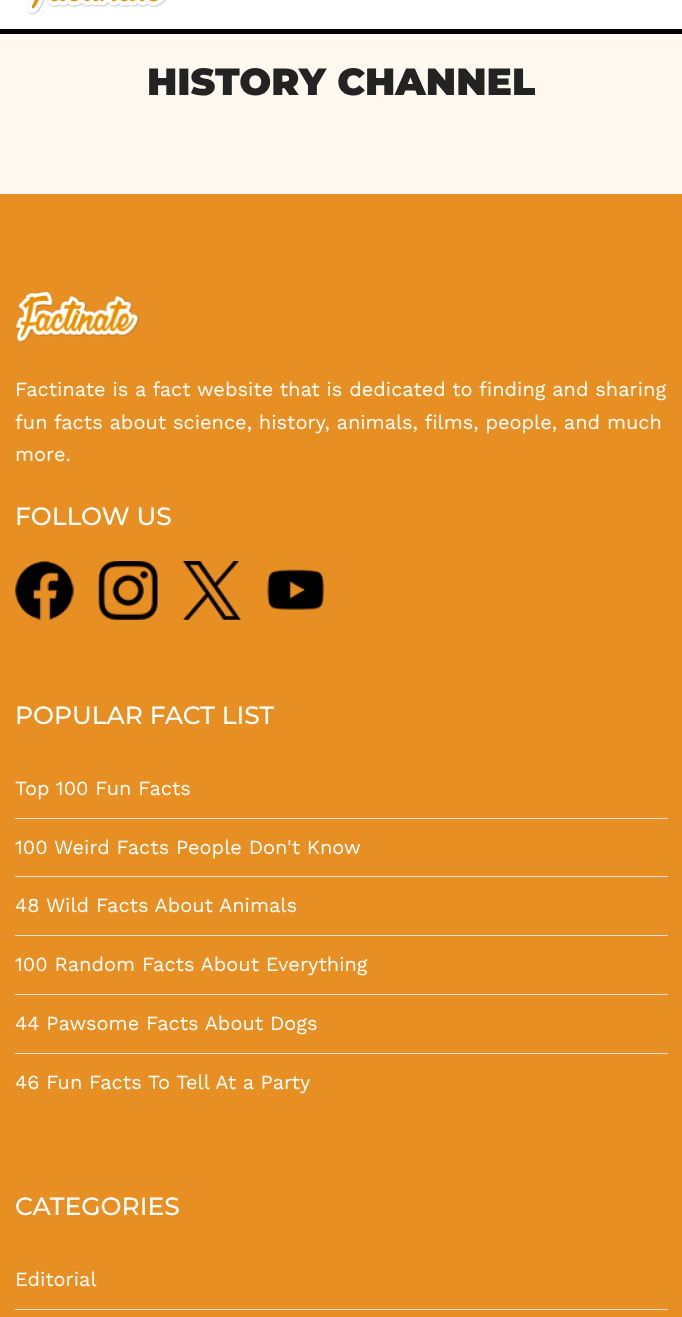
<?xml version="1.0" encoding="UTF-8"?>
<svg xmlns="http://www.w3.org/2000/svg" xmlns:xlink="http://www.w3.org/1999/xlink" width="682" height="1317">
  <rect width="100%" height="100%" fill="#fff8ee" />
  <rect width="682" height="29" fill="#ffffff" />
  <rect y="29" width="682" height="5" fill="#000000" />
  <image x="27" y="0" width="140" height="15" xlink:href="image1.png" />
  <rect y="194" width="682" height="1123" fill="#e88f23" />
  <image x="16" y="291" width="123" height="52" xlink:href="image2.png" />
  <image x="15" y="561" width="59" height="59" xlink:href="image3.png" />
  <image x="98" y="561" width="60" height="59" xlink:href="image4.png" />
  <image x="182" y="561" width="60" height="59" xlink:href="image5.png" />
  <image x="267" y="569" width="57" height="41" xlink:href="image6.png" />
  <rect x="15" y="818" width="653" height="1" fill="#dee1e3" />
  <rect x="15" y="876" width="653" height="1" fill="#dee1e3" />
  <rect x="15" y="935" width="653" height="1" fill="#dee1e3" />
  <rect x="15" y="994" width="653" height="1" fill="#dee1e3" />
  <rect x="15" y="1053" width="653" height="1" fill="#dee1e3" />
  <rect x="15" y="1309" width="653" height="1" fill="#dee1e3" />
  <text x="147" y="95" style="font-family: Montserrat; font-size: 37.75px; font-weight: 900; fill: #232323">HISTORY CHANNEL</text>
  <text x="15" y="396" style="font-family: Work Sans; font-size: 20px; fill: #ffffff">Factinate is a fact website that is dedicated to finding and sharing</text>
  <text x="15" y="429" style="font-family: Work Sans; font-size: 20px; fill: #ffffff">fun facts about science, history, animals, films, people, and much</text>
  <text x="15" y="461" style="font-family: Work Sans; font-size: 20px; fill: #ffffff">more.</text>
  <text x="15" y="525" style="font-family: Montserrat; font-size: 25px; font-weight: 500; fill: #ffffff">FOLLOW US</text>
  <text x="15" y="724" style="font-family: Montserrat; font-size: 25px; font-weight: 500; fill: #ffffff">POPULAR FACT LIST</text>
  <text x="15" y="795" style="font-family: Work Sans; font-size: 20px; fill: #ffffff">Top 100 Fun Facts</text>
  <text x="15" y="854" style="font-family: Work Sans; font-size: 20px; fill: #ffffff">100 Weird Facts People Don't Know</text>
  <text x="15" y="912" style="font-family: Work Sans; font-size: 20px; fill: #ffffff">48 Wild Facts About Animals</text>
  <text x="15" y="971" style="font-family: Work Sans; font-size: 20px; fill: #ffffff">100 Random Facts About Everything</text>
  <text x="15" y="1030" style="font-family: Work Sans; font-size: 20px; fill: #ffffff">44 Pawsome Facts About Dogs</text>
  <text x="15" y="1089" style="font-family: Work Sans; font-size: 20px; fill: #ffffff">46 Fun Facts To Tell At a Party</text>
  <text x="15" y="1215" style="font-family: Montserrat; font-size: 25px; font-weight: 500; fill: #ffffff">CATEGORIES</text>
  <text x="15" y="1286" style="font-family: Work Sans; font-size: 20px; fill: #ffffff">Editorial</text>
</svg>
